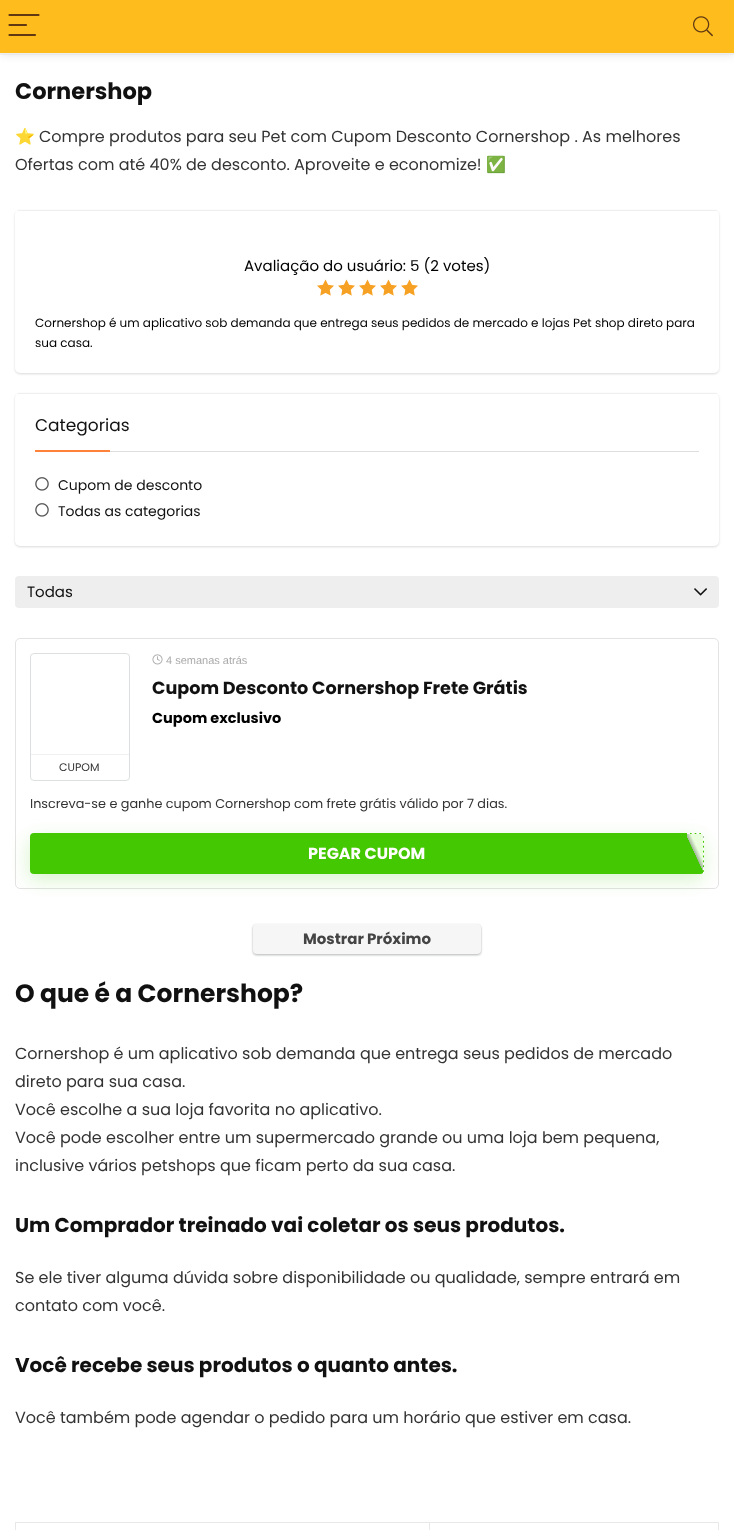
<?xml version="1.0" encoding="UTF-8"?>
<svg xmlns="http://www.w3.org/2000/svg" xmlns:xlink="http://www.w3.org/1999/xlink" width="734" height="1530">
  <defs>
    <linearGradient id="g1" gradientUnits="userSpaceOnUse" x1="681" y1="861" x2="709" y2="848"><stop offset="0" stop-color="#000000" stop-opacity="0" /><stop offset="0.5" stop-color="#a6b79d" stop-opacity="0" /><stop offset="0.51" stop-color="#a6b79d" /><stop offset="0.66" stop-color="#e9ffdd" /></linearGradient>
    <linearGradient id="g2" gradientUnits="userSpaceOnUse" x1="697" y1="861" x2="725" y2="848"><stop offset="0" stop-color="#000000" stop-opacity="0" /><stop offset="0.5" stop-color="#a6b79d" stop-opacity="0" /><stop offset="0.51" stop-color="#a6b79d" /><stop offset="0.66" stop-color="#e9ffdd" /></linearGradient>
  </defs>
  <rect width="100%" height="100%" fill="#ffffff" />
  <rect x="-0.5" y="-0.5" width="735" height="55" fill="none" stroke="#f7f7f7" />
  <rect y="1" width="734" height="54" fill="#000000" fill-opacity="0.1" filter="blur(4px)" />
  <rect width="734" height="53" fill="#febd1c" />
  <rect y="53" width="734" height="1" fill="#eeeeee" />
  <path d="M 9.5 15 h 29 m -29 10 h 16.5 m -16.5 10 h 25.5" fill="none" stroke="#603812" stroke-width="2.2" stroke-linecap="round" />
  <image x="693" y="16" width="20" height="21" xlink:href="image1.png" />
  <rect x="15" y="211" width="704" height="163" rx="5" fill="#000000" fill-opacity="0.15" filter="blur(1px)" />
  <rect x="15" y="210" width="704" height="163" rx="5" fill="#ffffff" />
  <rect x="18" y="210" width="699" height="1" fill="#efefef" />
  <image x="317" y="279" width="17" height="17" xlink:href="image2.png" />
  <image x="338" y="279" width="17" height="17" xlink:href="image2.png" />
  <image x="359" y="279" width="17" height="17" xlink:href="image2.png" />
  <image x="380" y="279" width="17" height="17" xlink:href="image2.png" />
  <image x="401" y="279" width="17" height="17" xlink:href="image2.png" />
  <rect x="15" y="394" width="704" height="153" rx="5" fill="#000000" fill-opacity="0.15" filter="blur(1px)" />
  <rect x="15" y="393" width="704" height="153" rx="5" fill="#ffffff" />
  <rect x="18" y="393" width="699" height="1" fill="#efefef" />
  <rect x="110" y="451" width="589" height="1" fill="#dddddd" />
  <rect x="35" y="450" width="75" height="2" fill="#ff823a" />
  <image x="35" y="477" width="14" height="14" xlink:href="image3.png" />
  <image x="35" y="503" width="14" height="14" xlink:href="image3.png" />
  <rect x="15" y="576" width="704" height="32" rx="4" fill="#eeeeee" />
  <image x="694" y="588" width="13" height="8" xlink:href="image4.png" />
  <rect x="15.5" y="638.5" width="703" height="250" rx="4.5" fill="none" stroke="#e3e3e3" />
  <image x="152" y="654" width="11" height="11" xlink:href="image5.png" />
  <rect x="30.5" y="653.5" width="99" height="127" rx="3.5" fill="none" stroke="#dce0e0" />
  <rect x="31" y="754" width="98" height="1" fill="#f0f0f0" />
  <rect x="29" y="839" width="674" height="41" rx="4" fill="#43c801" fill-opacity="0.2" filter="blur(9.5px)" />
  <rect x="30" y="833" width="674" height="41" rx="4" fill="#43c801" />
  <rect x="687" y="834" width="16" height="37" fill="url(#g1)" />
  <rect x="703" y="834" width="1" height="4" fill="url(#g2)" />
  <path d="M 687 833.5 h 17" fill="none" stroke="#ffffff" stroke-dasharray="3 1.67" />
  <path d="M 703.5 833 v 42" fill="none" stroke="#ffffff" stroke-dasharray="3 1.88" />
  <rect x="253" y="925" width="228" height="30" rx="4" fill="#000000" fill-opacity="0.08" filter="blur(1px)" />
  <rect x="253" y="925" width="228" height="30" rx="4" fill="#3c4043" fill-opacity="0.3" filter="blur(1px)" />
  <rect x="253" y="924" width="228" height="30" rx="4" fill="#f6f6f6" />
  <rect x="429" y="1522" width="290" height="1" fill="#e8e8e8" />
  <rect x="429" y="1522" width="1" height="8" fill="#e8e8e8" />
  <rect x="15" y="1522" width="415" height="1" fill="#e8e8e8" />
  <rect x="15" y="1522" width="1" height="8" fill="#e8e8e8" />
  <rect x="718" y="1522" width="1" height="8" fill="#e8e8e8" />
  <text x="15" y="99" style="font-family: Poppins; font-size: 22.5px; font-weight: bold; fill: #111111">Cornershop</text>
  <text x="15" y="142" style="font-family: Noto Color Emoji; font-size: 16px; fill: #333333">⭐</text>
  <text x="39" y="142" style="font-family: Poppins; font-size: 16px; fill: #333333">Compre produtos para seu Pet com Cupom Desconto Cornershop . As melhores</text>
  <text x="15" y="170" style="font-family: Poppins; font-size: 16px; fill: #333333">Ofertas com até 40% de desconto. Aproveite e economize!</text>
  <text x="486" y="170" style="font-family: Noto Color Emoji; font-size: 16px; fill: #333333">✅</text>
  <text x="244" y="271" style="font-family: Poppins; font-size: 15px; fill: #000000">Avaliação do usuário: 5 (2 votes)</text>
  <text x="35" y="327" style="font-family: Poppins; font-size: 12px; fill: #000000">Cornershop é um aplicativo sob demanda que entrega seus pedidos de mercado e lojas Pet shop direto para</text>
  <text x="35" y="347" style="font-family: Poppins; font-size: 12px; fill: #000000">sua casa.</text>
  <text x="35" y="431" style="font-family: Poppins; font-size: 17px; fill: #111111">Categorias</text>
  <text x="58" y="490" style="font-family: Poppins; font-size: 14px; fill: #111111">Cupom de desconto</text>
  <text x="58" y="516" style="font-family: Poppins; font-size: 14px; fill: #111111">Todas as categorias</text>
  <text x="27" y="597" style="font-family: Poppins; font-size: 15px; fill: #111111">Todas</text>
  <text x="166" y="664" style="font-family: Liberation Sans; font-size: 11px; fill: #aaaaaa">4 semanas atrás</text>
  <text x="152" y="694" style="font-family: Poppins; font-size: 17.6px; font-weight: bold; fill: #111111">Cupom Desconto Cornershop Frete Grátis</text>
  <text x="152" y="723" style="font-family: Poppins; font-size: 14.5px; font-weight: bold; fill: #000000">Cupom exclusivo</text>
  <text x="59" y="771" style="font-family: Poppins; font-size: 11px; fill: #333333">CUPOM</text>
  <text x="30" y="808" style="font-family: Poppins; font-size: 12.8px; fill: #333333">Inscreva-se e ganhe cupom Cornershop com frete grátis válido por 7 dias.</text>
  <text x="308" y="859" style="font-family: Poppins; font-size: 16px; font-weight: bold; fill: #ffffff">PEGAR CUPOM</text>
  <text x="303" y="944" style="font-family: Poppins; font-size: 15px; font-weight: bold; fill: #444444">Mostrar Próximo</text>
  <text x="15" y="1002" style="font-family: Poppins; font-size: 25px; font-weight: bold; fill: #111111">O que é a Cornershop?</text>
  <text x="15" y="1059" style="font-family: Poppins; font-size: 16px; fill: #333333">Cornershop é um aplicativo sob demanda que entrega seus pedidos de mercado</text>
  <text x="15" y="1087" style="font-family: Poppins; font-size: 16px; fill: #333333">direto para sua casa.</text>
  <text x="15" y="1115" style="font-family: Poppins; font-size: 16px; fill: #333333">Você escolhe a sua loja favorita no aplicativo.</text>
  <text x="15" y="1143" style="font-family: Poppins; font-size: 16px; fill: #333333">Você pode escolher entre um supermercado grande ou uma loja bem pequena,</text>
  <text x="15" y="1171" style="font-family: Poppins; font-size: 16px; fill: #333333">inclusive vários petshops que ficam perto da sua casa.</text>
  <text x="15" y="1232" style="font-family: Poppins; font-size: 20px; font-weight: bold; fill: #111111">Um Comprador treinado vai coletar os seus produtos.</text>
  <text x="15" y="1283" style="font-family: Poppins; font-size: 16px; fill: #333333">Se ele tiver alguma dúvida sobre disponibilidade ou qualidade, sempre entrará em</text>
  <text x="15" y="1311" style="font-family: Poppins; font-size: 16px; fill: #333333">contato com você.</text>
  <text x="15" y="1372" style="font-family: Poppins; font-size: 20px; font-weight: bold; fill: #111111">Você recebe seus produtos o quanto antes.</text>
  <text x="15" y="1423" style="font-family: Poppins; font-size: 16px; fill: #333333">Você também pode agendar o pedido para um horário que estiver em casa.</text>
</svg>
